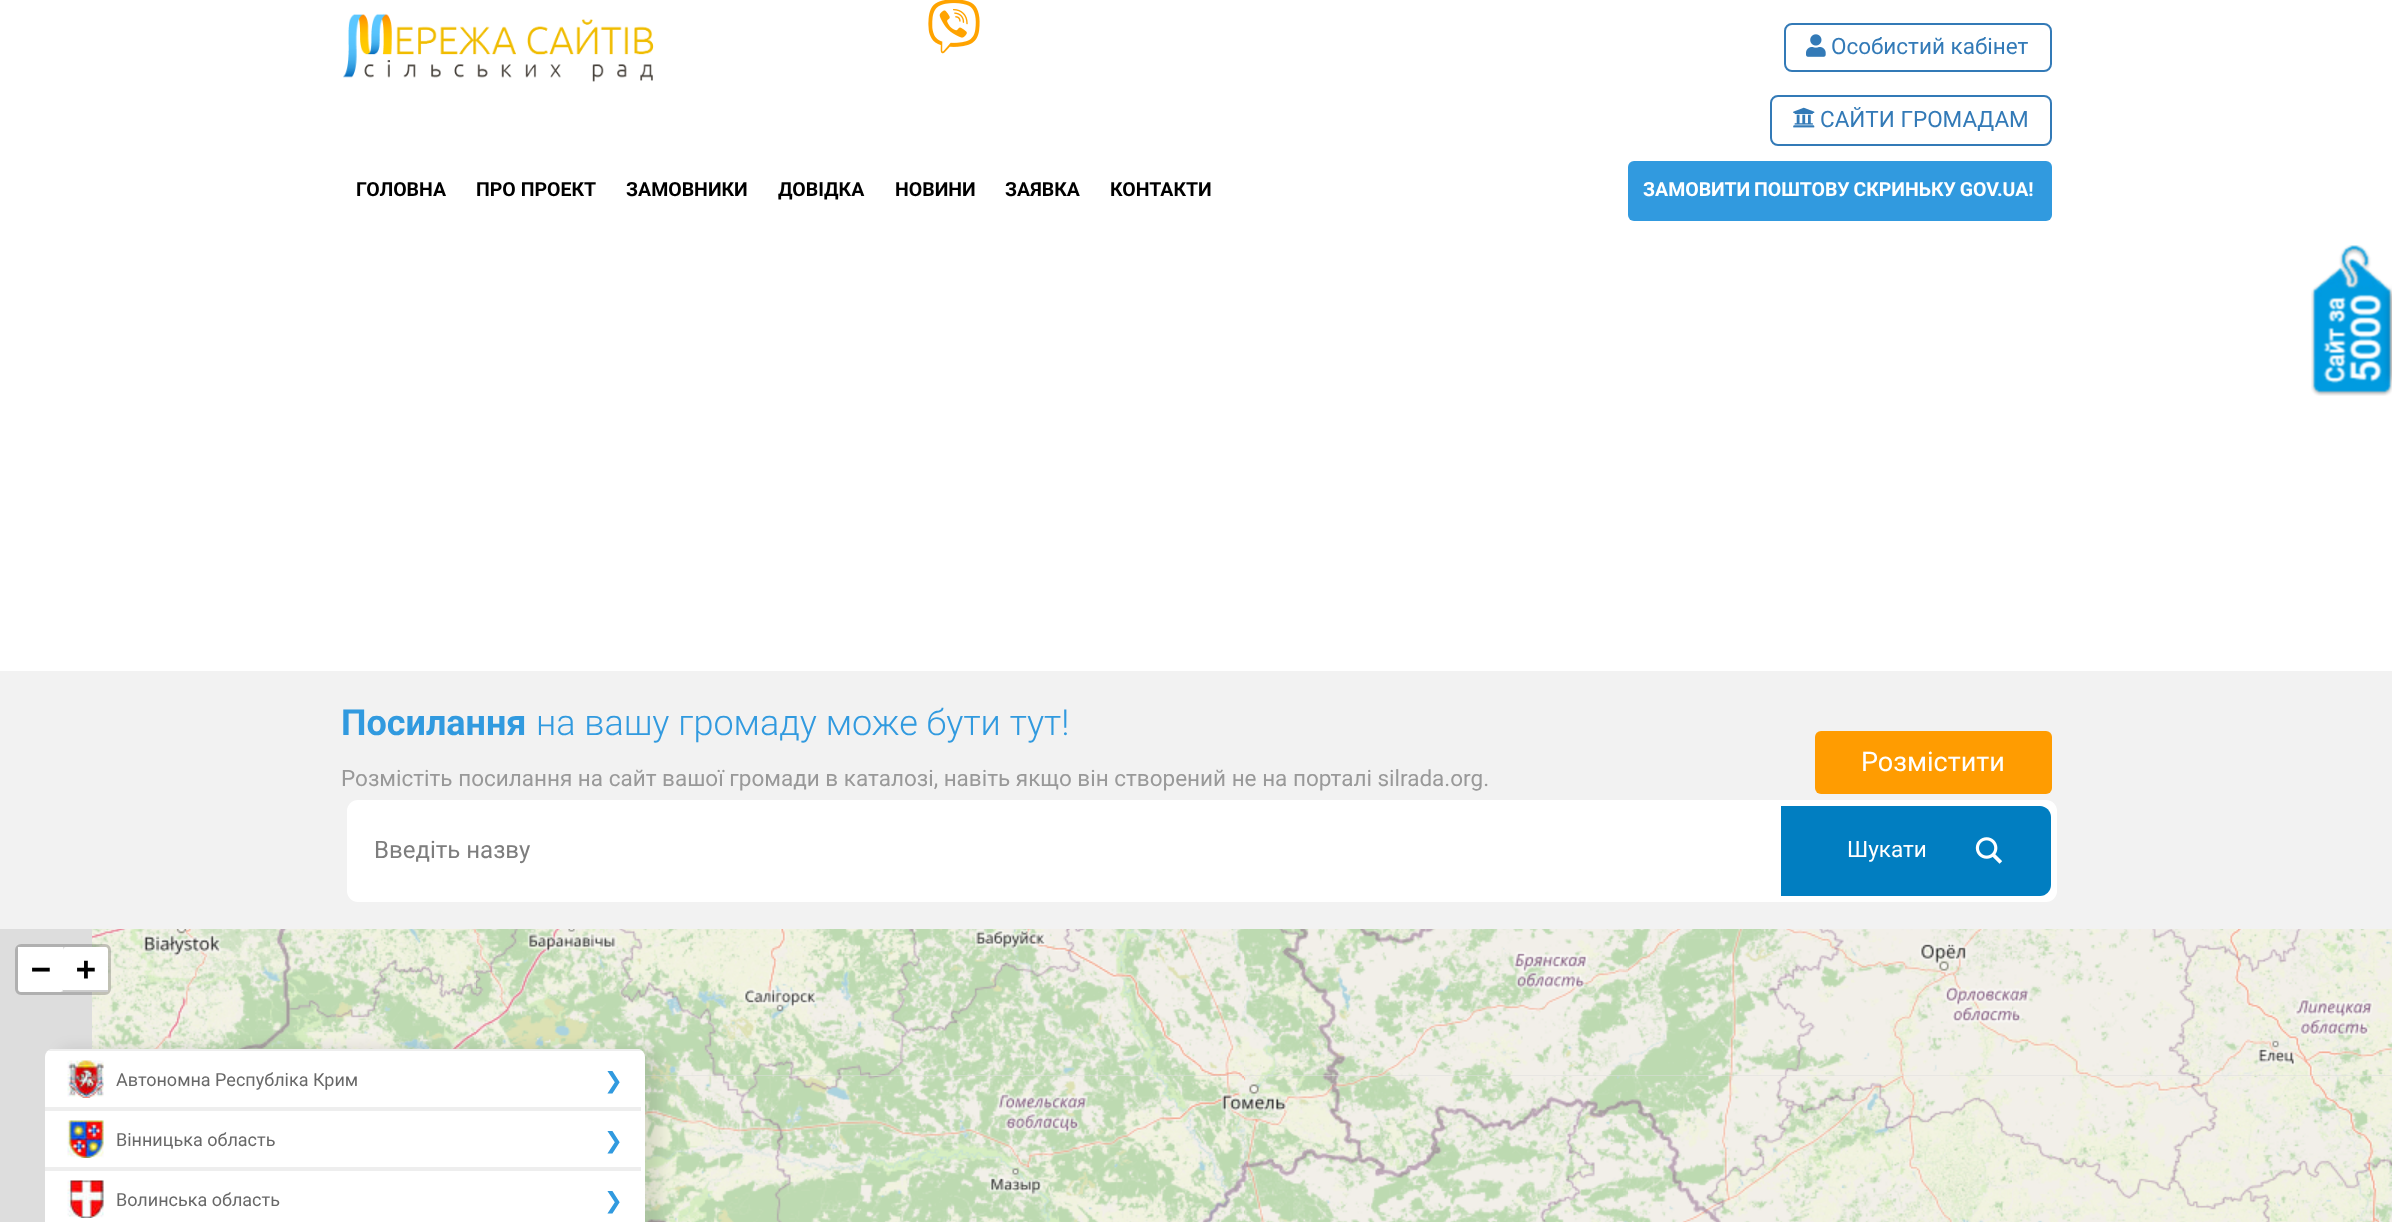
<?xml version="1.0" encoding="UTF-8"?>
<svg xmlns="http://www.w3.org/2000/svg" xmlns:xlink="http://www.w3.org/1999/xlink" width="2392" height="1222">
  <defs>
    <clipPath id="clip1"><rect x="45" y="1049" width="600" height="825" rx="8" /></clipPath>
  </defs>
  <rect width="100%" height="100%" fill="#ffffff" />
  <image x="343" y="13" width="311" height="69" xlink:href="image1.png" />
  <image x="928" y="0" width="52" height="54" xlink:href="image2.png" />
  <rect x="1785" y="24" width="266" height="47" rx="7" fill="none" stroke="#337ab7" stroke-width="2" />
  <image x="1806" y="34" width="20" height="23" xlink:href="image3.png" />
  <rect x="1771" y="96" width="280" height="49" rx="7" fill="none" stroke="#337ab7" stroke-width="2" />
  <image x="1793" y="107" width="22" height="21" xlink:href="image4.png" />
  <rect x="1628" y="161" width="424" height="60" rx="6" fill="#319adf" />
  <image x="2311" y="245" width="81" height="151" xlink:href="image5.png" />
  <rect x="2391" y="293" width="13" height="87" fill="#000000" fill-opacity="0.32" filter="blur(4px)" />
  <rect y="671" width="2392" height="258" fill="#f2f2f2" />
  <rect x="1815" y="731" width="237" height="63" rx="6" fill="#ff9c01" />
  <rect x="347" y="800" width="1710" height="102" rx="11" fill="#ffffff" />
  <path d="M 1781 806 h 259 c 6 0 11 5 11 11 v 68 c 0 6 -5 11 -11 11 h -259 z" fill="#017ec1" />
  <image x="1975" y="837" width="28" height="27" xlink:href="image6.png" />
  <rect y="929" width="2392" height="293" fill="#dddddd" />
  <image x="92" y="929" width="384" height="120" xlink:href="image7.png" />
  <rect x="16.5" y="945.5" width="93" height="48" rx="4.5" fill="none" stroke="#000000" stroke-opacity="0.2" stroke-width="3" />
  <path d="M 18 947 h 45 v 42 c 0 1.5 -1.5 3 -3 3 h -39 c -1.5 0 -3 -1.5 -3 -3 z" fill="#ffffff" />
  <path d="M 66 947 h 39 c 1.5 0 3 1.5 3 3 v 42 h -45 v -42 c 0 -1.5 1.5 -3 3 -3 z" fill="#ffffff" />
  <rect x="63" y="990" width="45" height="2" fill="#cccccc" />
  <image x="476" y="929" width="384" height="147" xlink:href="image8.png" />
  <image x="860" y="929" width="384" height="147" xlink:href="image9.png" />
  <image x="1244" y="929" width="384" height="147" xlink:href="image10.png" />
  <image x="1628" y="929" width="384" height="147" xlink:href="image11.png" />
  <image x="2012" y="929" width="380" height="147" xlink:href="image12.png" />
  <image x="645" y="1076" width="215" height="146" xlink:href="image13.png" />
  <image x="860" y="1076" width="384" height="146" xlink:href="image14.png" />
  <image x="1244" y="1076" width="384" height="146" xlink:href="image15.png" />
  <image x="1628" y="1076" width="384" height="146" xlink:href="image16.png" />
  <image x="2012" y="1076" width="380" height="146" xlink:href="image17.png" />
  <rect x="60" y="1049" width="600" height="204" rx="8" fill="#000000" fill-opacity="0.1" filter="blur(7.5px)" />
  <rect x="45" y="1049" width="600" height="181" rx="8" fill="#ffffff" />
  <g clip-path="url(#clip1)">
    <rect x="45" y="1049" width="596" height="2" fill="#eeeeee" />
  </g>
  <rect x="45" y="1107" width="596" height="4" fill="#eeeeee" />
  <image x="67" y="1060" width="37" height="38" xlink:href="image18.png" />
  <rect x="45" y="1167" width="596" height="4" fill="#eeeeee" />
  <image x="67" y="1120" width="37" height="38" xlink:href="image19.png" />
  <image x="67" y="1180" width="37" height="38" xlink:href="image20.png" />
  <text x="1831" y="54" style="font-family: Roboto; font-size: 22.5px; fill: #337ab7">Особистий кабінет</text>
  <text x="1820" y="127" style="font-family: Roboto; font-size: 22.5px; fill: #337ab7">САЙТИ ГРОМАДАМ</text>
  <text x="356" y="196" style="font-family: Roboto; font-size: 19.5px; font-weight: bold; fill: #000000">ГОЛОВНА</text>
  <text x="476" y="196" style="font-family: Roboto; font-size: 19.5px; font-weight: bold; fill: #000000">ПРО ПРОЕКТ</text>
  <text x="626" y="196" style="font-family: Roboto; font-size: 19.5px; font-weight: bold; fill: #000000">ЗАМОВНИКИ</text>
  <text x="778" y="196" style="font-family: Roboto; font-size: 19.5px; font-weight: bold; fill: #000000">ДОВІДКА</text>
  <text x="895" y="196" style="font-family: Roboto; font-size: 19.5px; font-weight: bold; fill: #000000">НОВИНИ</text>
  <text x="1005" y="196" style="font-family: Roboto; font-size: 19.5px; font-weight: bold; fill: #000000">ЗАЯВКА</text>
  <text x="1110" y="196" style="font-family: Roboto; font-size: 19.5px; font-weight: bold; fill: #000000">КОНТАКТИ</text>
  <text x="1643" y="196" word-spacing="-1" style="font-family: Roboto; font-size: 19.5px; font-weight: bold; fill: #ffffff">ЗАМОВИТИ ПОШТОВУ СКРИНЬКУ GOV.UA!</text>
  <text x="341" y="735" style="font-family: Roboto; font-size: 36px; font-weight: bold; fill: #319adf">Посилання</text>
  <text x="536" y="735" style="font-family: Roboto; font-size: 36px; font-weight: 300; fill: #319adf">на вашу громаду може бути тут!</text>
  <text x="341" y="786" style="font-family: Roboto; font-size: 22.5px; fill: #999999">Розмістіть посилання на сайт вашої громади в каталозі, навіть якщо він створений не на порталі silrada.org.</text>
  <text x="1861" y="771" style="font-family: Roboto; font-size: 27px; fill: #ffffff">Розмістити</text>
  <text x="374" y="858" style="font-family: Roboto; font-size: 24px; fill: #7d7d7d">Введіть назву</text>
  <text x="1847" y="857" style="font-family: Roboto; font-size: 22.5px; fill: #ffffff">Шукати</text>
  <text x="31" y="980" style="font-family: DejaVu Sans Mono; font-size: 33px; font-weight: bold; fill: #000000">−</text>
  <text x="76" y="980" style="font-family: DejaVu Sans Mono; font-size: 33px; font-weight: bold; fill: #000000">+</text>
  <text x="116" y="1086" style="font-family: Roboto; font-size: 18px; fill: #686868">Автономна Республіка Крим</text>
  <text x="604" y="1088" style="font-family: DejaVu Sans; font-size: 22.5px; fill: #319adf">❯</text>
  <text x="116" y="1146" style="font-family: Roboto; font-size: 18px; fill: #686868">Вінницька область</text>
  <text x="604" y="1148" style="font-family: DejaVu Sans; font-size: 22.5px; fill: #319adf">❯</text>
  <text x="116" y="1206" style="font-family: Roboto; font-size: 18px; fill: #686868">Волинська область</text>
  <text x="604" y="1208" style="font-family: DejaVu Sans; font-size: 22.5px; fill: #319adf">❯</text>
</svg>
